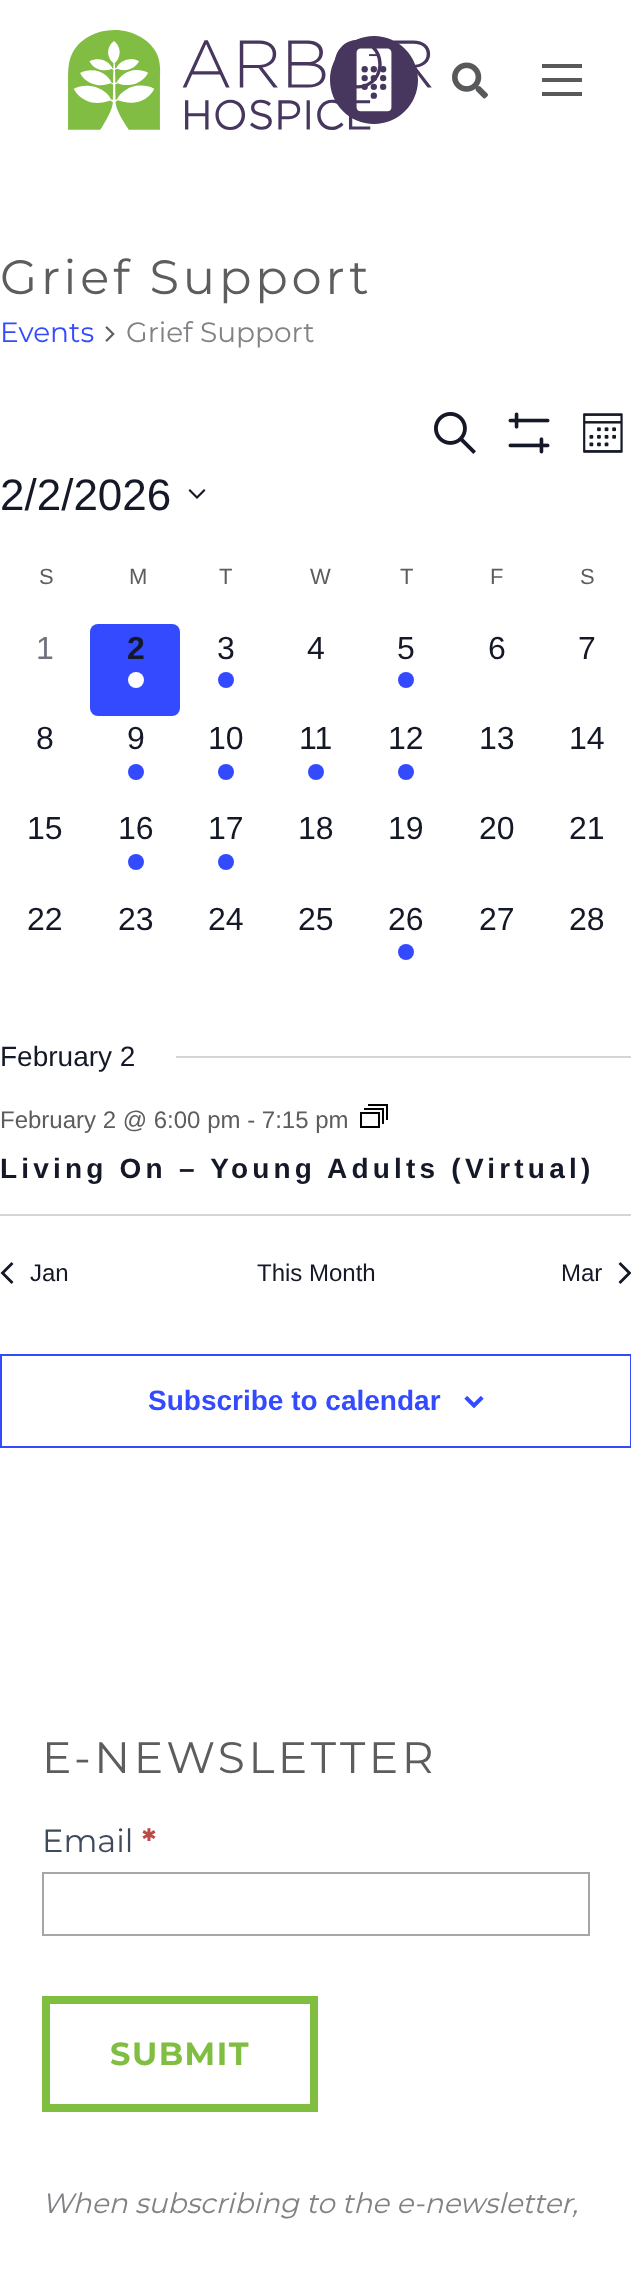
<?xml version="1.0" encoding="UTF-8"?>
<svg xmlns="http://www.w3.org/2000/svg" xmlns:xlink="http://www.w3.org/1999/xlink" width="631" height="2278">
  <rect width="100%" height="100%" fill="#ffffff" />
  <image x="68" y="30" width="364" height="100" xlink:href="image1.png" />
  <image x="330" y="36" width="88" height="88" xlink:href="image2.png" />
  <image x="452" y="62" width="36" height="37" xlink:href="image3.png" />
  <rect x="542" y="78" width="40" height="4" fill="#58595b" />
  <rect x="542" y="64" width="40" height="4" fill="#58595b" />
  <rect x="542" y="92" width="40" height="4" fill="#58595b" />
  <image x="105" y="326" width="10" height="16" xlink:href="image4.png" />
  <image x="434" y="412" width="42" height="42" xlink:href="image5.png" />
  <image x="508" y="412" width="42" height="42" xlink:href="image6.png" />
  <image x="583" y="413" width="40" height="40" xlink:href="image7.png" />
  <path d="M 190 489 l 7 7 l 7 -7 l 1.5 1.5 l -8.5 8.5 l -8.5 -8.5 z" fill="#141827" fill-rule="evenodd" />
  <rect x="90" y="624" width="90" height="92" rx="8" fill="#334aff" />
  <circle cx="136" cy="680" r="8" fill="#ffffff" />
  <circle cx="226" cy="680" r="8" fill="#334aff" />
  <circle cx="406" cy="680" r="8" fill="#334aff" />
  <circle cx="136" cy="772" r="8" fill="#334aff" />
  <circle cx="226" cy="772" r="8" fill="#334aff" />
  <circle cx="316" cy="772" r="8" fill="#334aff" />
  <circle cx="406" cy="772" r="8" fill="#334aff" />
  <circle cx="136" cy="862" r="8" fill="#334aff" />
  <circle cx="226" cy="862" r="8" fill="#334aff" />
  <circle cx="406" cy="952" r="8" fill="#334aff" />
  <rect x="176" y="1056" width="455" height="2" fill="#d5d5d5" />
  <rect x="361" y="1113" width="18" height="14" fill="none" stroke="#000000" stroke-width="2" />
  <path d="M 364 1109 h 19 v 15 m -15 -19 h 19 v 15" fill="none" stroke="#000000" stroke-width="2" />
  <rect y="1214" width="631" height="2" fill="#d5d5d5" />
  <path d="M 13.5 1282 l -2 2 l -11 -11 l 11 -11 l 2 2 l -9 9 z" fill="#141827" />
  <path d="M 618.5 1264 l 2 -2 l 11 11 l -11 11 l -2 -2 l 9 -9 z" fill="#141827" />
  <rect x="1" y="1355" width="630" height="92" fill="none" stroke="#334aff" stroke-width="2" />
  <image x="464" y="1396" width="20" height="12" xlink:href="image8.png" />
  <rect x="43" y="1873" width="546" height="62" fill="none" stroke="#a6a6a8" stroke-width="2" />
  <rect x="44" y="1998" width="272" height="112" fill="none" stroke="#80be42" stroke-width="4" />
  <rect x="48" y="2002" width="264" height="104" fill="none" stroke="#80be42" stroke-width="4" />
  <text x="0" y="294" style="font-family: Montserrat; font-size: 48px; letter-spacing: 3.8px; fill: #5d5d5d">Grief Support</text>
  <text x="0" y="342" style="font-family: Montserrat; font-size: 28px; fill: #334aff">Events</text>
  <text x="126" y="342" style="font-family: Montserrat; font-size: 28px; fill: #808285">Grief Support</text>
  <text x="0" y="510" style="font-family: Liberation Sans; font-size: 44px; fill: #141827">2/2/2026</text>
  <text x="39" y="584" style="font-family: Liberation Sans; font-size: 22px; fill: #5d5d5d">S</text>
  <text x="129" y="584" style="font-family: Liberation Sans; font-size: 22px; fill: #5d5d5d">M</text>
  <text x="219" y="584" style="font-family: Liberation Sans; font-size: 22px; fill: #5d5d5d">T</text>
  <text x="310" y="584" style="font-family: Liberation Sans; font-size: 22px; fill: #5d5d5d">W</text>
  <text x="400" y="584" style="font-family: Liberation Sans; font-size: 22px; fill: #5d5d5d">T</text>
  <text x="490" y="584" style="font-family: Liberation Sans; font-size: 22px; fill: #5d5d5d">F</text>
  <text x="580" y="584" style="font-family: Liberation Sans; font-size: 22px; fill: #5d5d5d">S</text>
  <text x="36" y="659" style="font-family: Liberation Sans; font-size: 32px; fill: #72747d">1</text>
  <text x="127" y="659" style="font-family: Liberation Sans; font-size: 32px; font-weight: bold; fill: #141827">2</text>
  <text x="217" y="659" style="font-family: Liberation Sans; font-size: 32px; fill: #141827">3</text>
  <text x="307" y="659" style="font-family: Liberation Sans; font-size: 32px; fill: #141827">4</text>
  <text x="397" y="659" style="font-family: Liberation Sans; font-size: 32px; fill: #141827">5</text>
  <text x="488" y="659" style="font-family: Liberation Sans; font-size: 32px; fill: #141827">6</text>
  <text x="578" y="659" style="font-family: Liberation Sans; font-size: 32px; fill: #141827">7</text>
  <text x="36" y="749" style="font-family: Liberation Sans; font-size: 32px; fill: #141827">8</text>
  <text x="127" y="749" style="font-family: Liberation Sans; font-size: 32px; fill: #141827">9</text>
  <text x="208" y="749" style="font-family: Liberation Sans; font-size: 32px; fill: #141827">10</text>
  <text x="299" y="749" style="font-family: Liberation Sans; font-size: 32px; fill: #141827">11</text>
  <text x="388" y="749" style="font-family: Liberation Sans; font-size: 32px; fill: #141827">12</text>
  <text x="479" y="749" style="font-family: Liberation Sans; font-size: 32px; fill: #141827">13</text>
  <text x="569" y="749" style="font-family: Liberation Sans; font-size: 32px; fill: #141827">14</text>
  <text x="27" y="839" style="font-family: Liberation Sans; font-size: 32px; fill: #141827">15</text>
  <text x="118" y="839" style="font-family: Liberation Sans; font-size: 32px; fill: #141827">16</text>
  <text x="208" y="839" style="font-family: Liberation Sans; font-size: 32px; fill: #141827">17</text>
  <text x="298" y="839" style="font-family: Liberation Sans; font-size: 32px; fill: #141827">18</text>
  <text x="388" y="839" style="font-family: Liberation Sans; font-size: 32px; fill: #141827">19</text>
  <text x="479" y="839" style="font-family: Liberation Sans; font-size: 32px; fill: #141827">20</text>
  <text x="569" y="839" style="font-family: Liberation Sans; font-size: 32px; fill: #141827">21</text>
  <text x="27" y="930" style="font-family: Liberation Sans; font-size: 32px; fill: #141827">22</text>
  <text x="118" y="930" style="font-family: Liberation Sans; font-size: 32px; fill: #141827">23</text>
  <text x="208" y="930" style="font-family: Liberation Sans; font-size: 32px; fill: #141827">24</text>
  <text x="298" y="930" style="font-family: Liberation Sans; font-size: 32px; fill: #141827">25</text>
  <text x="388" y="930" style="font-family: Liberation Sans; font-size: 32px; fill: #141827">26</text>
  <text x="479" y="930" style="font-family: Liberation Sans; font-size: 32px; fill: #141827">27</text>
  <text x="569" y="930" style="font-family: Liberation Sans; font-size: 32px; fill: #141827">28</text>
  <text x="0" y="1066" style="font-family: Liberation Sans; font-size: 28px; fill: #141827">February 2</text>
  <text x="0" y="1128" style="font-family: Liberation Sans; font-size: 24px; fill: #5d5d5d">February 2 @ 6:00 pm - 7:15 pm</text>
  <text x="0" y="1178" style="font-family: Liberation Sans; font-size: 28px; font-weight: bold; letter-spacing: 4.2px; fill: #141827">Living On – Young Adults (Virtual)</text>
  <text x="30" y="1281" style="font-family: Liberation Sans; font-size: 24px; fill: #141827">Jan</text>
  <text x="257" y="1281" style="font-family: Liberation Sans; font-size: 24px; fill: #141827">This Month</text>
  <text x="561" y="1281" style="font-family: Liberation Sans; font-size: 24px; fill: #141827">Mar</text>
  <text x="148" y="1410" style="font-family: Liberation Sans; font-size: 28px; font-weight: bold; fill: #334aff">Subscribe to calendar</text>
  <text x="42" y="1773" style="font-family: Montserrat; font-size: 44px; letter-spacing: 3.5px; fill: #5d5d5d">E-NEWSLETTER</text>
  <text x="42" y="1852" style="font-family: Montserrat; font-size: 32px; fill: #3f4b5b">Email</text>
  <text x="142" y="1852" style="font-family: Montserrat; font-size: 32px; font-weight: bold; fill: #b94a48">*</text>
  <text x="110" y="2065" style="font-family: Montserrat; font-size: 32px; font-weight: bold; letter-spacing: 1.5px; fill: #80be42">SUBMIT</text>
  <text x="42" y="2213" style="font-family: Montserrat; font-size: 28px; font-style: italic; fill: #808285">When subscribing to the e-newsletter,</text>
</svg>
